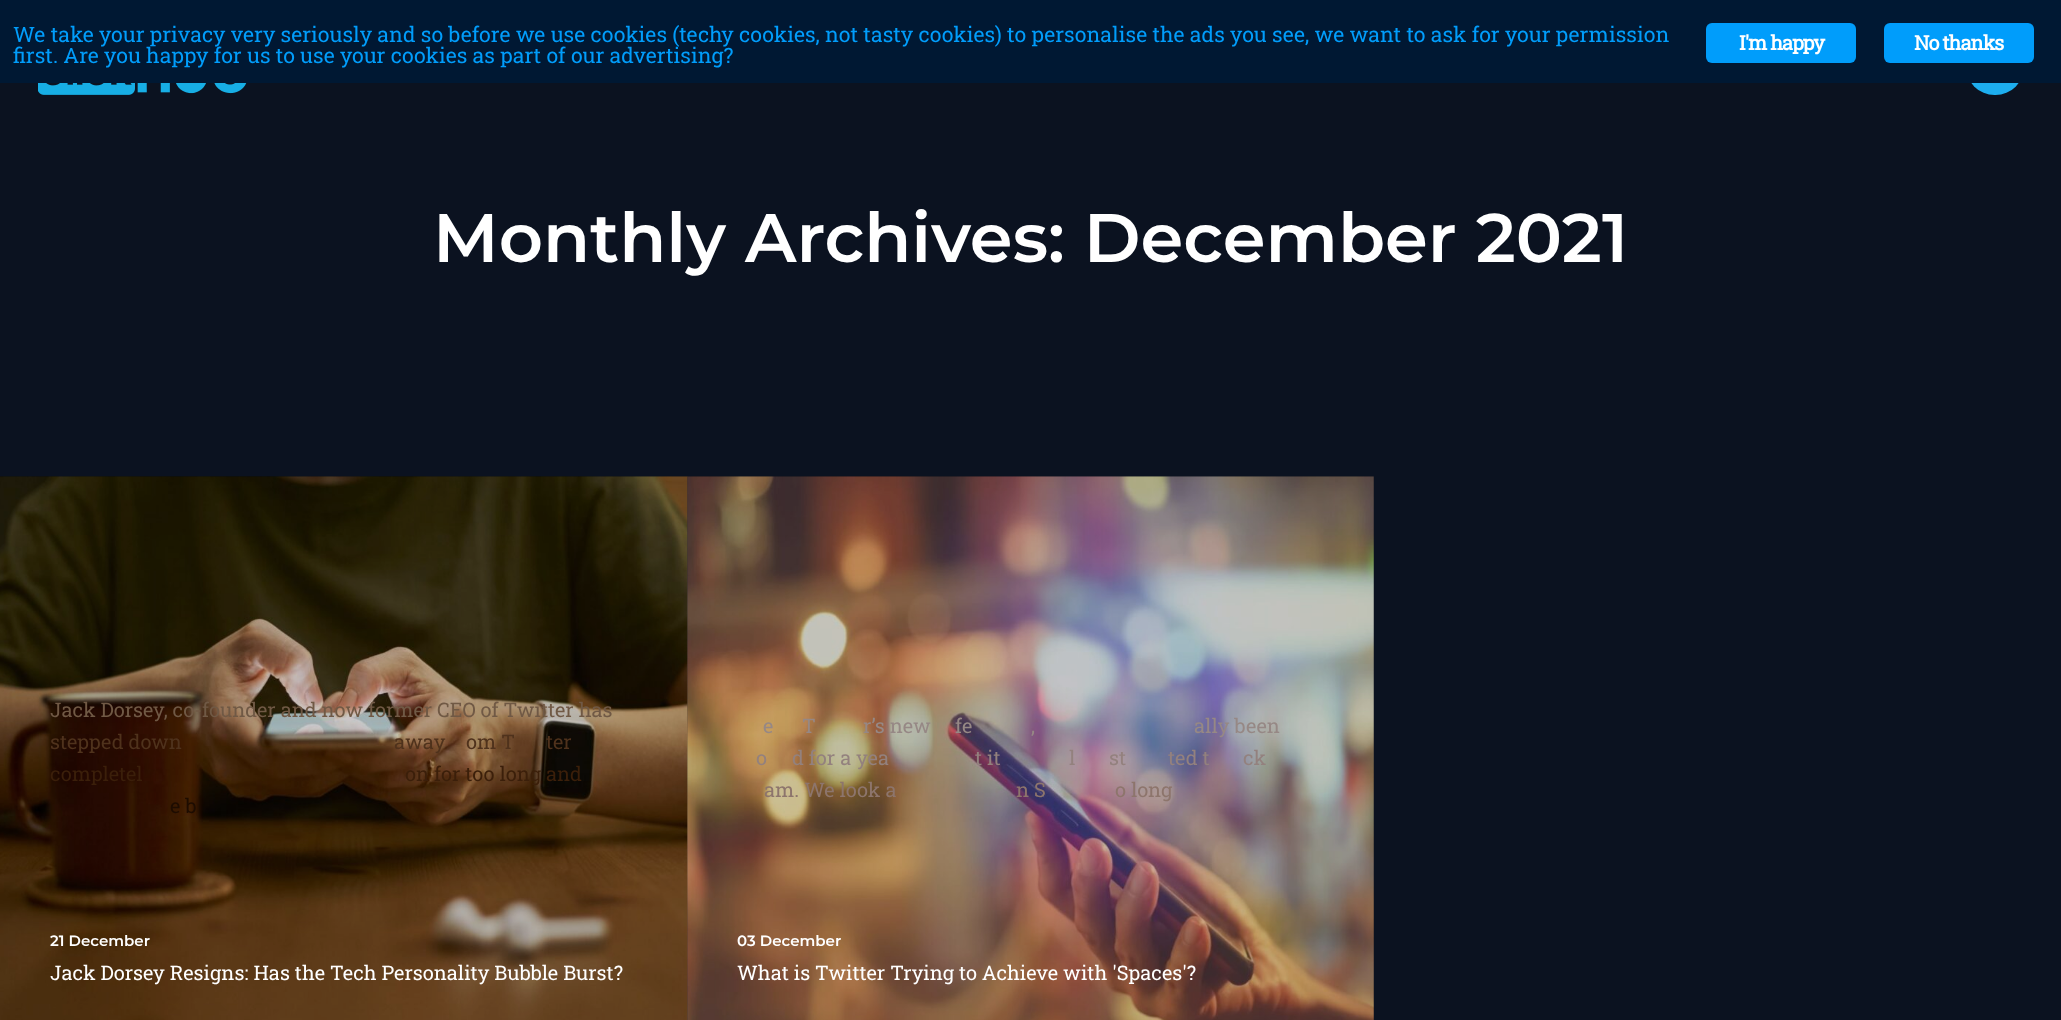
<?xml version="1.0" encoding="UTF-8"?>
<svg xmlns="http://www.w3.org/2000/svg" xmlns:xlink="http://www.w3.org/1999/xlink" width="2061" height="1020">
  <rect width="100%" height="100%" fill="#0b1220" />
  <rect x="1966" y="38" width="58" height="57" rx="28.5" fill="#1daeef" />
  <rect width="2061" height="83" fill="#001833" />
  <rect x="1706" y="23" width="150" height="40" rx="6" fill="#009dfb" />
  <rect x="1884" y="23" width="150" height="40" rx="6" fill="#009dfb" />
  <image x="38" y="83" width="209" height="12" xlink:href="image1.png" />
  <rect y="476" width="1374" height="544" fill="#090e1a" />
  <image x="0" y="476" width="688" height="544" xlink:href="image2.png" />
  <image x="687" y="476" width="687" height="544" xlink:href="image3.png" />
  <text x="13" y="42" style="font-family: Roboto Slab; font-size: 21.25px; fill: #009dfb">We take your privacy very seriously and so before we use cookies (techy cookies, not tasty cookies) to personalise the ads you see, we want to ask for your permission</text>
  <text x="13" y="63" style="font-family: Roboto Slab; font-size: 21.25px; fill: #009dfb">first. Are you happy for us to use your cookies as part of our advertising?</text>
  <text x="1739" y="50" style="font-family: Roboto Slab; font-size: 20px; font-weight: bold; letter-spacing: -1px; fill: #ffffff">I'm happy</text>
  <text x="1914" y="50" style="font-family: Roboto Slab; font-size: 20px; font-weight: bold; letter-spacing: -1px; fill: #ffffff">No thanks</text>
  <text x="433" y="262" style="font-family: Montserrat; font-size: 68.75px; font-weight: 100; fill: #ffffff">Monthly Archives: December 2021</text>
  <text x="50" y="717" style="font-family: Roboto Slab; font-size: 20px; fill: #705945">Jack Dorsey, co-founder and now former CEO of Twitter has</text>
  <text x="50" y="749" style="font-family: Roboto Slab; font-size: 20px; fill: #4f321c">stepped down</text>
  <text x="394" y="749" style="font-family: Roboto Slab; font-size: 20px; fill: #4f321c">away</text>
  <text x="466" y="749" style="font-family: Roboto Slab; font-size: 20px; fill: #4f321c">om T</text>
  <text x="546" y="749" style="font-family: Roboto Slab; font-size: 20px; fill: #4f321c">ter</text>
  <text x="50" y="781" style="font-family: Roboto Slab; font-size: 20px; fill: #3b1f0a">completel</text>
  <text x="405" y="781" style="font-family: Roboto Slab; font-size: 20px; fill: #3b1f0a">on for too long and</text>
  <text x="170" y="813" style="font-family: Roboto Slab; font-size: 20px; fill: #1d0c01">e b</text>
  <text x="50" y="946" style="font-family: Montserrat; font-size: 15px; font-weight: 100; fill: #ffffff">21 December</text>
  <text x="50" y="980" style="font-family: Roboto Slab; font-size: 20px; fill: #ffffff">Jack Dorsey Resigns: Has the Tech Personality Bubble Burst?</text>
  <text x="763" y="733" style="font-family: Roboto Slab; font-size: 20px; fill: #968885">e</text>
  <text x="802" y="733" style="font-family: Roboto Slab; font-size: 20px; fill: #968885">T</text>
  <text x="863" y="733" style="font-family: Roboto Slab; font-size: 20px; fill: #968885">r’s new</text>
  <text x="955" y="733" style="font-family: Roboto Slab; font-size: 20px; fill: #968885">fe</text>
  <text x="1031" y="733" style="font-family: Roboto Slab; font-size: 20px; fill: #968885">,</text>
  <text x="1194" y="733" style="font-family: Roboto Slab; font-size: 20px; fill: #968885">ally been</text>
  <text x="756" y="765" style="font-family: Roboto Slab; font-size: 20px; fill: #93817e">o</text>
  <text x="792" y="765" style="font-family: Roboto Slab; font-size: 20px; fill: #93817e">d for a yea</text>
  <text x="975" y="765" style="font-family: Roboto Slab; font-size: 20px; fill: #93817e">t it</text>
  <text x="1069" y="765" style="font-family: Roboto Slab; font-size: 20px; fill: #93817e">l</text>
  <text x="1109" y="765" style="font-family: Roboto Slab; font-size: 20px; fill: #93817e">st</text>
  <text x="1168" y="765" style="font-family: Roboto Slab; font-size: 20px; fill: #93817e">ted t</text>
  <text x="1243" y="765" style="font-family: Roboto Slab; font-size: 20px; fill: #93817e">ck</text>
  <text x="764" y="797" style="font-family: Roboto Slab; font-size: 20px; fill: #8d756c">am. We look a</text>
  <text x="1016" y="797" style="font-family: Roboto Slab; font-size: 20px; fill: #8d756c">n S</text>
  <text x="1115" y="797" style="font-family: Roboto Slab; font-size: 20px; fill: #8d756c">o long</text>
  <text x="737" y="946" style="font-family: Montserrat; font-size: 15px; font-weight: 100; fill: #ffffff">03 December</text>
  <text x="737" y="980" style="font-family: Roboto Slab; font-size: 20px; fill: #ffffff">What is Twitter Trying to Achieve with 'Spaces'?</text>
</svg>
